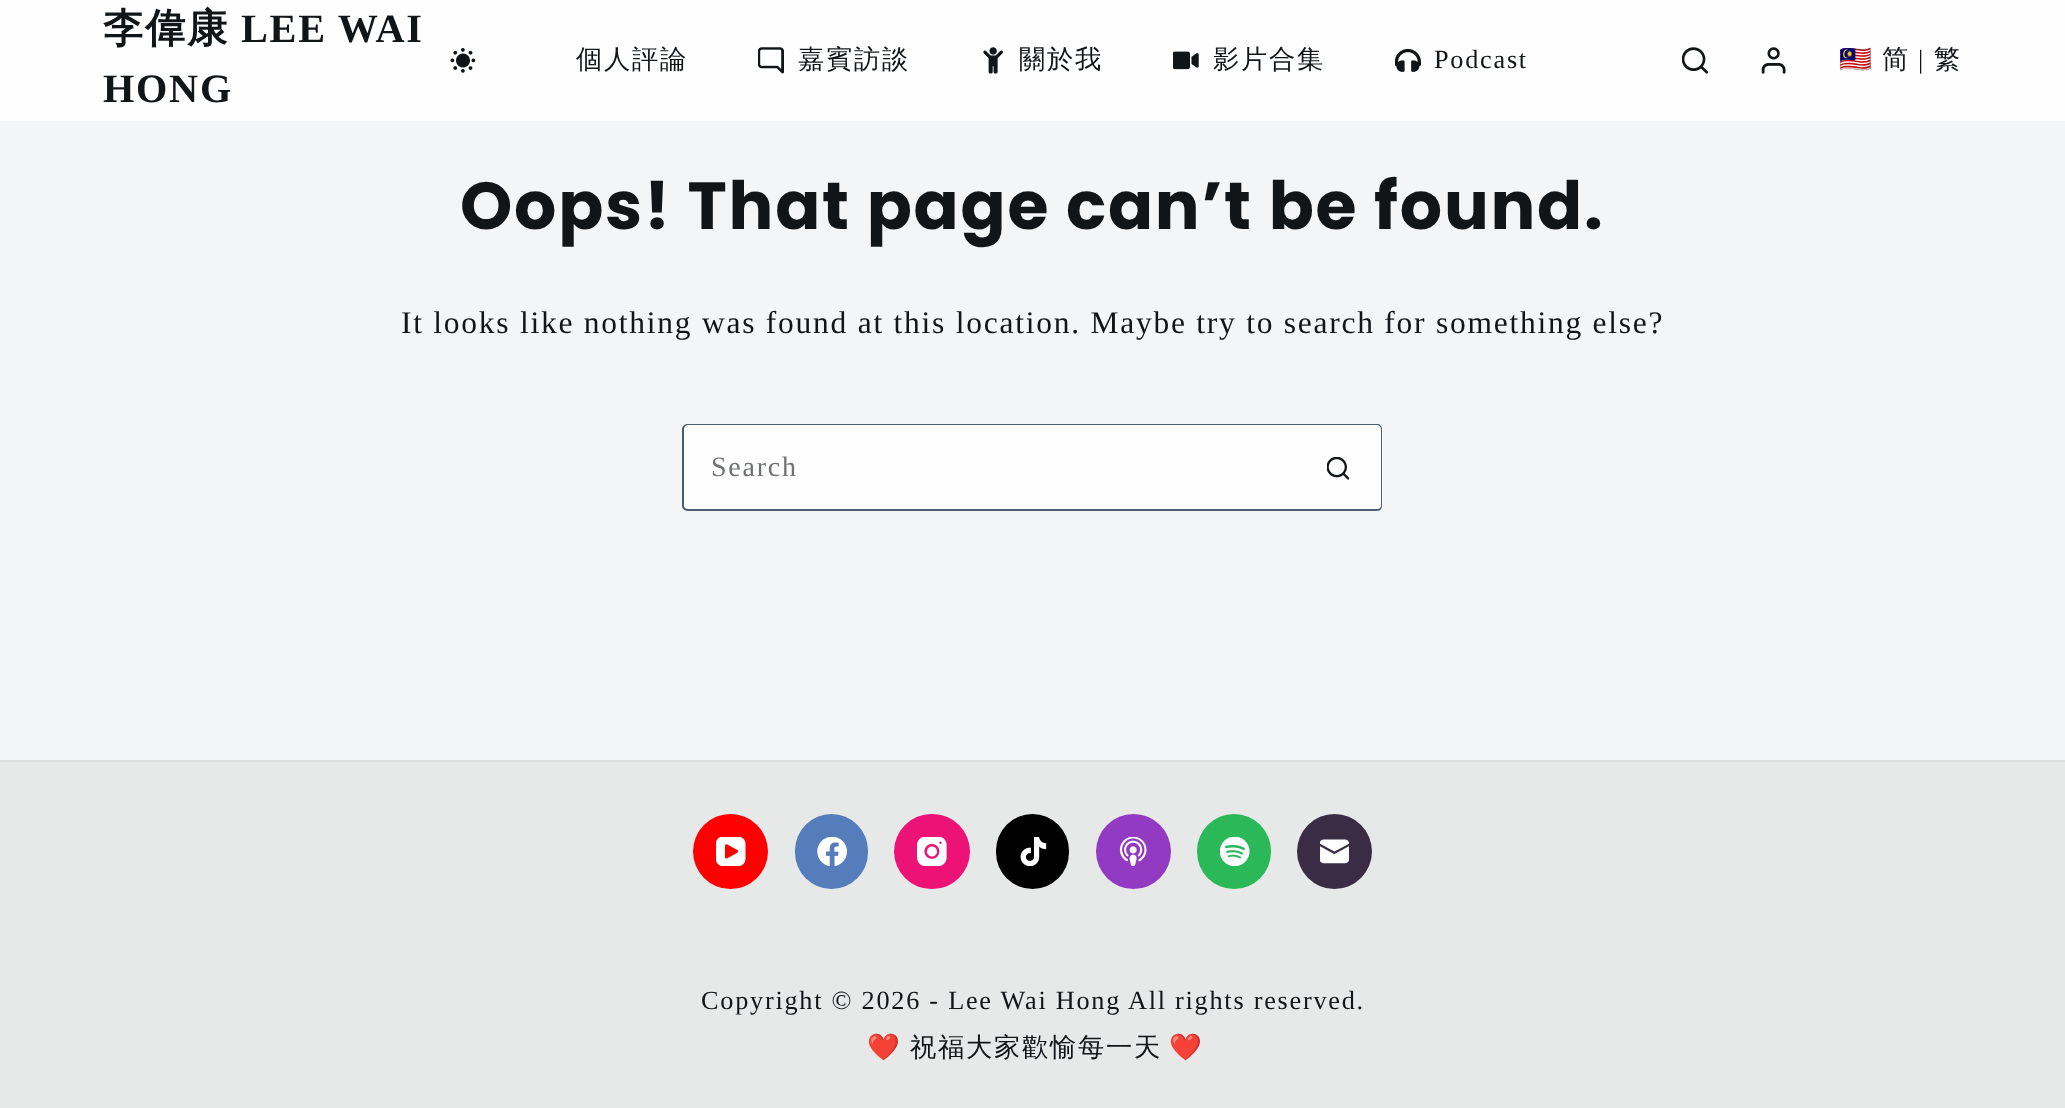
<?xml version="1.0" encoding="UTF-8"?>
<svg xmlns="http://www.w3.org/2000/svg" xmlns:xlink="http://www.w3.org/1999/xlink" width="2065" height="1108">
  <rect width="100%" height="100%" fill="#f3f5f7" />
  <rect width="2065" height="121" fill="#fefefe" />
  <image x="450" y="48" width="26" height="25" xlink:href="image1.png" />
  <image x="758" y="47" width="26" height="27" xlink:href="image2.png" />
  <image x="983" y="47" width="20" height="27" xlink:href="image3.png" />
  <image x="1173" y="51" width="26" height="19" xlink:href="image4.png" />
  <image x="1395" y="48" width="26" height="24" xlink:href="image5.png" />
  <image x="1682" y="47" width="26" height="27" xlink:href="image6.png" />
  <image x="1761" y="47" width="25" height="27" xlink:href="image7.png" />
  <path d="M 688 424 h 607 v 87 h -607 c -3 0 -5 -2 -5 -5 v -77 c 0 -3 2 -5 5 -5 z" fill="#fefefe" />
  <path d="M 688 424 h 607 v 87 h -607 c -3 0 -6 -2 -6 -5 v -77 c 0 -3 3 -5 6 -5 z m 0 1 h 607 v 84 h -607 c -2 0 -4 -1 -4 -3 v -77 c 0 -2 2 -4 4 -4 z" fill="#4d5d6d" fill-rule="evenodd" />
  <path d="M 1295 424 h 83 c 3 0 5 2 5 5 v 77 c 0 3 -2 5 -5 5 h -83 z" fill="#fefefe" />
  <path d="M 1295 424 h 82 c 3 0 5 2 5 5 v 77 c 0 3 -2 5 -5 5 h -82 z m 0 1 h 82 c 2 0 4 2 4 4 v 77 c 0 2 -2 3 -4 3 h -82 z" fill="#4d5d6d" fill-rule="evenodd" />
  <image x="1327" y="457" width="22" height="23" xlink:href="image8.png" />
  <rect y="762" width="2065" height="346" fill="#e7e8e8" />
  <rect y="760" width="2065" height="2" fill="#dddddd" />
  <circle cx="730.5" cy="851.5" r="37.5" fill="#ff0000" />
  <image x="716" y="837" width="30" height="29" xlink:href="image9.png" />
  <rect x="795" y="814" width="73" height="75" rx="36.5" fill="#557dbc" />
  <image x="817" y="837" width="30" height="29" xlink:href="image10.png" />
  <rect x="894" y="814" width="76" height="75" rx="37.5" fill="#ed1376" />
  <image x="917" y="837" width="30" height="29" xlink:href="image11.png" />
  <rect x="996" y="814" width="73" height="75" rx="36.5" fill="#000000" />
  <image x="1020" y="837" width="27" height="29" xlink:href="image12.png" />
  <circle cx="1133.5" cy="851.5" r="37.5" fill="#933ac3" />
  <image x="1119" y="837" width="28" height="29" xlink:href="image13.png" />
  <rect x="1197" y="814" width="74" height="75" rx="37" fill="#2ab859" />
  <image x="1220" y="837" width="30" height="29" xlink:href="image14.png" />
  <circle cx="1334.5" cy="851.5" r="37.5" fill="#392c44" />
  <image x="1320" y="839" width="29" height="25" xlink:href="image15.png" />
  <text x="103" y="42" style="font-family: WenQuanYi Zen Hei; font-size: 40.25px; font-weight: bold; letter-spacing: 1.75px; fill: #111518">李偉康</text>
  <text x="241" y="42" style="font-family: Liberation Serif; font-size: 40.25px; font-weight: bold; letter-spacing: 1.75px; fill: #111518">LEE WAI</text>
  <text x="103" y="102" style="font-family: Liberation Serif; font-size: 40.25px; font-weight: bold; letter-spacing: 1.75px; fill: #111518">HONG</text>
  <text x="576" y="68" style="font-family: WenQuanYi Zen Hei; font-size: 26.25px; font-weight: 500; letter-spacing: 1.75px; fill: #111518">個人評論</text>
  <text x="798" y="68" style="font-family: WenQuanYi Zen Hei; font-size: 26.25px; font-weight: 500; letter-spacing: 1.75px; fill: #111518">嘉賓訪談</text>
  <text x="1019" y="68" style="font-family: WenQuanYi Zen Hei; font-size: 26.25px; font-weight: 500; letter-spacing: 1.75px; fill: #111518">關於我</text>
  <text x="1213" y="68" style="font-family: WenQuanYi Zen Hei; font-size: 26.25px; font-weight: 500; letter-spacing: 1.75px; fill: #111518">影片合集</text>
  <text x="1434" y="68" style="font-family: Liberation Serif; font-size: 26.25px; letter-spacing: 1.75px; fill: #111518">Podcast</text>
  <text x="1839" y="68" style="font-family: Noto Color Emoji; font-size: 26.25px; letter-spacing: 1.75px; fill: #111518">🇲🇾</text>
  <text x="1882" y="68" style="font-family: WenQuanYi Zen Hei; font-size: 26.25px; font-weight: 500; letter-spacing: 1.75px; fill: #111518">简</text>
  <text x="1918" y="68" style="font-family: Liberation Serif; font-size: 26.25px; letter-spacing: 1.75px; fill: #111518">|</text>
  <text x="1934" y="68" style="font-family: WenQuanYi Zen Hei; font-size: 26.25px; font-weight: 500; letter-spacing: 1.75px; fill: #111518">繁</text>
  <text x="460" y="229" style="font-family: Poppins; font-size: 66.5px; font-weight: bold; letter-spacing: 1.75px; fill: #111518">Oops! That page can’t be found.</text>
  <text x="401" y="333" style="font-family: Liberation Serif; font-size: 31.5px; letter-spacing: 1.75px; fill: #111518">It looks like nothing was found at this location. Maybe try to search for something else?</text>
  <text x="711" y="476" style="font-family: Liberation Serif; font-size: 28px; letter-spacing: 1.75px; fill: #707274">Search</text>
  <text x="701" y="1009" style="font-family: Liberation Serif; font-size: 26.25px; letter-spacing: 1.75px; fill: #111518">Copyright © 2026 - Lee Wai Hong All rights reserved.</text>
  <text x="867" y="1056" style="font-family: Noto Color Emoji; font-size: 26.25px; letter-spacing: 1.75px; fill: #111518">❤️</text>
  <text x="910" y="1056" style="font-family: WenQuanYi Zen Hei; font-size: 26.25px; font-weight: 500; letter-spacing: 1.75px; fill: #111518">祝福大家歡愉每一天</text>
  <text x="1169" y="1056" style="font-family: Noto Color Emoji; font-size: 26.25px; letter-spacing: 1.75px; fill: #111518">❤️</text>
</svg>
